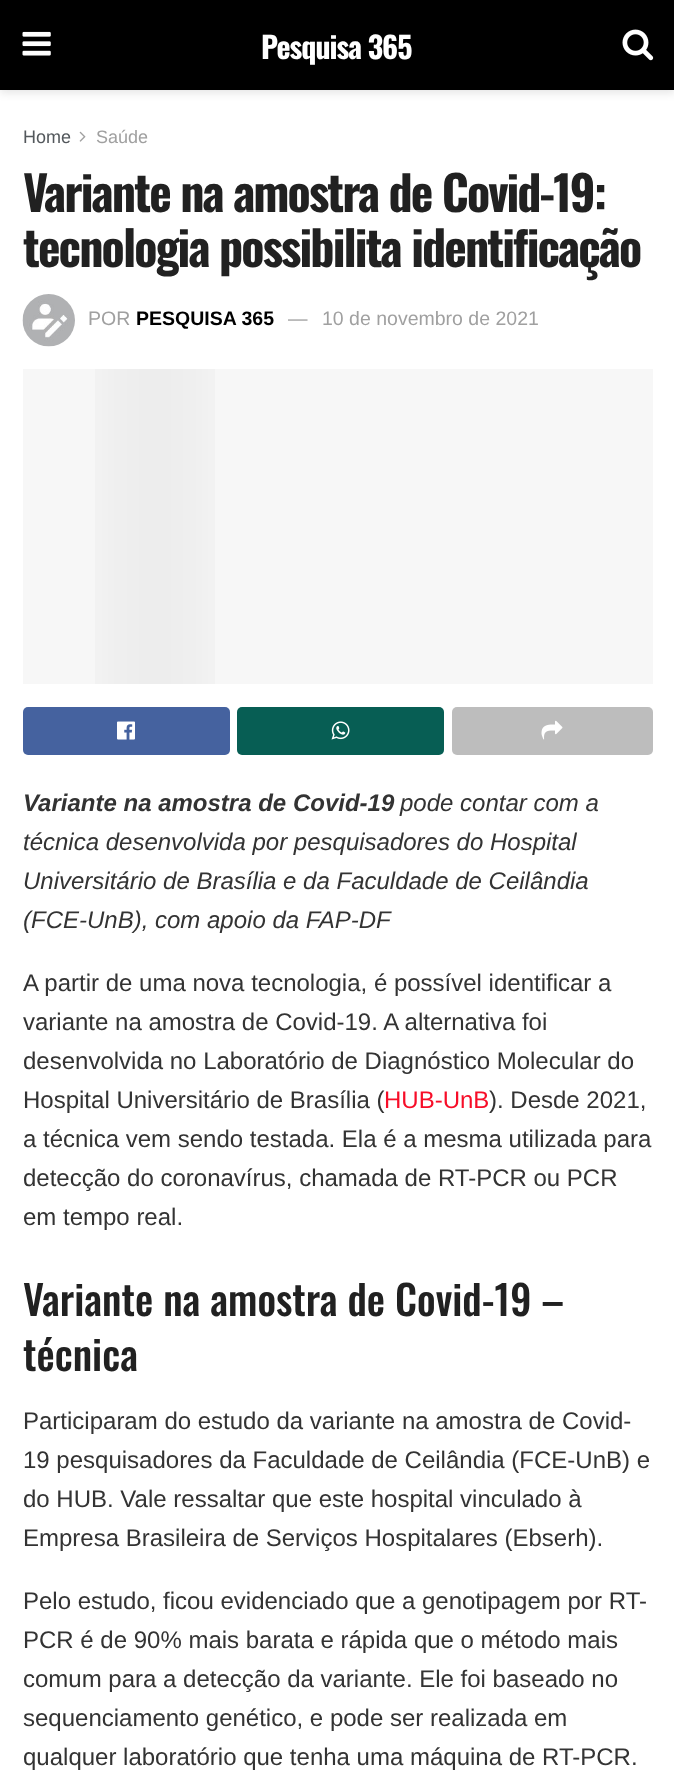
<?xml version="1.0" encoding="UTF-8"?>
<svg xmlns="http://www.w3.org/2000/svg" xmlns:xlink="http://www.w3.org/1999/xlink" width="674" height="1781">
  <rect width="100%" height="100%" fill="#ffffff" />
  <rect y="3" width="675" height="90" fill="#000000" fill-opacity="0.1" filter="blur(4.5px)" />
  <rect width="674" height="90" fill="#000000" />
  <image x="22" y="31" width="29" height="25" xlink:href="image1.png" />
  <image x="622" y="29" width="32" height="32" xlink:href="image2.png" />
  <image x="79" y="131" width="7" height="11" xlink:href="image3.png" />
  <image x="22" y="294" width="53" height="53" xlink:href="image4.png" />
  <rect x="23" y="369" width="630" height="315" fill="#f7f7f7" />
  <image x="95" y="369" width="120" height="315" xlink:href="image5.png" />
  <rect x="23" y="707" width="207" height="48" rx="5" fill="#45629f" />
  <image x="117" y="721" width="18" height="19" xlink:href="image6.png" />
  <rect x="237" y="707" width="207" height="48" rx="5" fill="#075e54" />
  <image x="331" y="721" width="19" height="19" xlink:href="image7.png" />
  <rect x="452" y="707" width="201" height="48" rx="5" fill="#bdbdbd" />
  <image x="541" y="720" width="22" height="20" xlink:href="image8.png" />
  <text x="261" y="59" style="font-family: Oswald; font-size: 30px; font-weight: bold; letter-spacing: -1px; fill: #ffffff">Pesquisa 365</text>
  <text x="23" y="143" style="font-family: Liberation Sans; font-size: 18px; fill: #53585c">Home</text>
  <text x="96" y="143" style="font-family: Liberation Sans; font-size: 18px; fill: #a0a0a0">Saúde</text>
  <text x="23" y="212" style="font-family: Oswald; font-size: 48px; font-weight: bold; letter-spacing: -1.9px; fill: #212121">Variante na amostra de Covid-19:</text>
  <text x="23" y="267" style="font-family: Oswald; font-size: 48px; font-weight: bold; letter-spacing: -1.9px; fill: #212121">tecnologia possibilita identificação</text>
  <text x="88" y="325" style="font-family: Liberation Sans; font-size: 19.5px; fill: #a0a0a0">POR</text>
  <text x="136" y="325" style="font-family: Liberation Sans; font-size: 19.5px; font-weight: bold; fill: #000000">PESQUISA 365</text>
  <text x="288" y="325" style="font-family: Liberation Sans; font-size: 19.5px; fill: #a0a0a0">—</text>
  <text x="322" y="325" style="font-family: Liberation Sans; font-size: 19.5px; fill: #a0a0a0">10 de novembro de 2021</text>
  <text x="23" y="811" style="font-family: Liberation Sans; font-size: 24px; font-weight: bold; font-style: italic; fill: #333333">Variante na amostra de Covid-19</text>
  <text x="400" y="811" style="font-family: Liberation Sans; font-size: 24px; font-style: italic; fill: #333333">pode contar com a</text>
  <text x="23" y="850" style="font-family: Liberation Sans; font-size: 24px; font-style: italic; fill: #333333">técnica desenvolvida por pesquisadores do Hospital</text>
  <text x="23" y="889" style="font-family: Liberation Sans; font-size: 24px; font-style: italic; fill: #333333">Universitário de Brasília e da Faculdade de Ceilândia</text>
  <text x="23" y="928" style="font-family: Liberation Sans; font-size: 24px; font-style: italic; fill: #333333">(FCE-UnB), com apoio da FAP-DF</text>
  <text x="23" y="991" style="font-family: Liberation Sans; font-size: 24px; fill: #333333">A partir de uma nova tecnologia, é possível identificar a</text>
  <text x="23" y="1030" style="font-family: Liberation Sans; font-size: 24px; fill: #333333">variante na amostra de Covid-19. A alternativa foi</text>
  <text x="23" y="1069" style="font-family: Liberation Sans; font-size: 24px; fill: #333333">desenvolvida no Laboratório de Diagnóstico Molecular do</text>
  <text x="23" y="1108" style="font-family: Liberation Sans; font-size: 24px; fill: #333333">Hospital Universitário de Brasília (</text>
  <text x="384" y="1108" style="font-family: Liberation Sans; font-size: 24px; fill: #f70d28">HUB-UnB</text>
  <text x="489" y="1108" style="font-family: Liberation Sans; font-size: 24px; fill: #333333">). Desde 2021,</text>
  <text x="23" y="1147" style="font-family: Liberation Sans; font-size: 24px; fill: #333333">a técnica vem sendo testada. Ela é a mesma utilizada para</text>
  <text x="23" y="1186" style="font-family: Liberation Sans; font-size: 24px; fill: #333333">detecção do coronavírus, chamada de RT-PCR ou PCR</text>
  <text x="23" y="1225" style="font-family: Liberation Sans; font-size: 24px; fill: #333333">em tempo real.</text>
  <text x="23" y="1316" style="font-family: Oswald; font-size: 40.9px; font-weight: 500; fill: #212121">Variante na amostra de Covid-19 –</text>
  <text x="23" y="1371" style="font-family: Oswald; font-size: 40.9px; font-weight: 500; fill: #212121">técnica</text>
  <text x="23" y="1429" style="font-family: Liberation Sans; font-size: 24px; fill: #333333">Participaram do estudo da variante na amostra de Covid-</text>
  <text x="23" y="1468" style="font-family: Liberation Sans; font-size: 24px; fill: #333333">19 pesquisadores da Faculdade de Ceilândia (FCE-UnB) e</text>
  <text x="23" y="1507" style="font-family: Liberation Sans; font-size: 24px; fill: #333333">do HUB. Vale ressaltar que este hospital vinculado à</text>
  <text x="23" y="1546" style="font-family: Liberation Sans; font-size: 24px; fill: #333333">Empresa Brasileira de Serviços Hospitalares (Ebserh).</text>
  <text x="23" y="1609" style="font-family: Liberation Sans; font-size: 24px; fill: #333333">Pelo estudo, ficou evidenciado que a genotipagem por RT-</text>
  <text x="23" y="1648" style="font-family: Liberation Sans; font-size: 24px; fill: #333333">PCR é de 90% mais barata e rápida que o método mais</text>
  <text x="23" y="1687" style="font-family: Liberation Sans; font-size: 24px; fill: #333333">comum para a detecção da variante. Ele foi baseado no</text>
  <text x="23" y="1726" style="font-family: Liberation Sans; font-size: 24px; fill: #333333">sequenciamento genético, e pode ser realizada em</text>
  <text x="23" y="1765" style="font-family: Liberation Sans; font-size: 24px; fill: #333333">qualquer laboratório que tenha uma máquina de RT-PCR.</text>
</svg>
